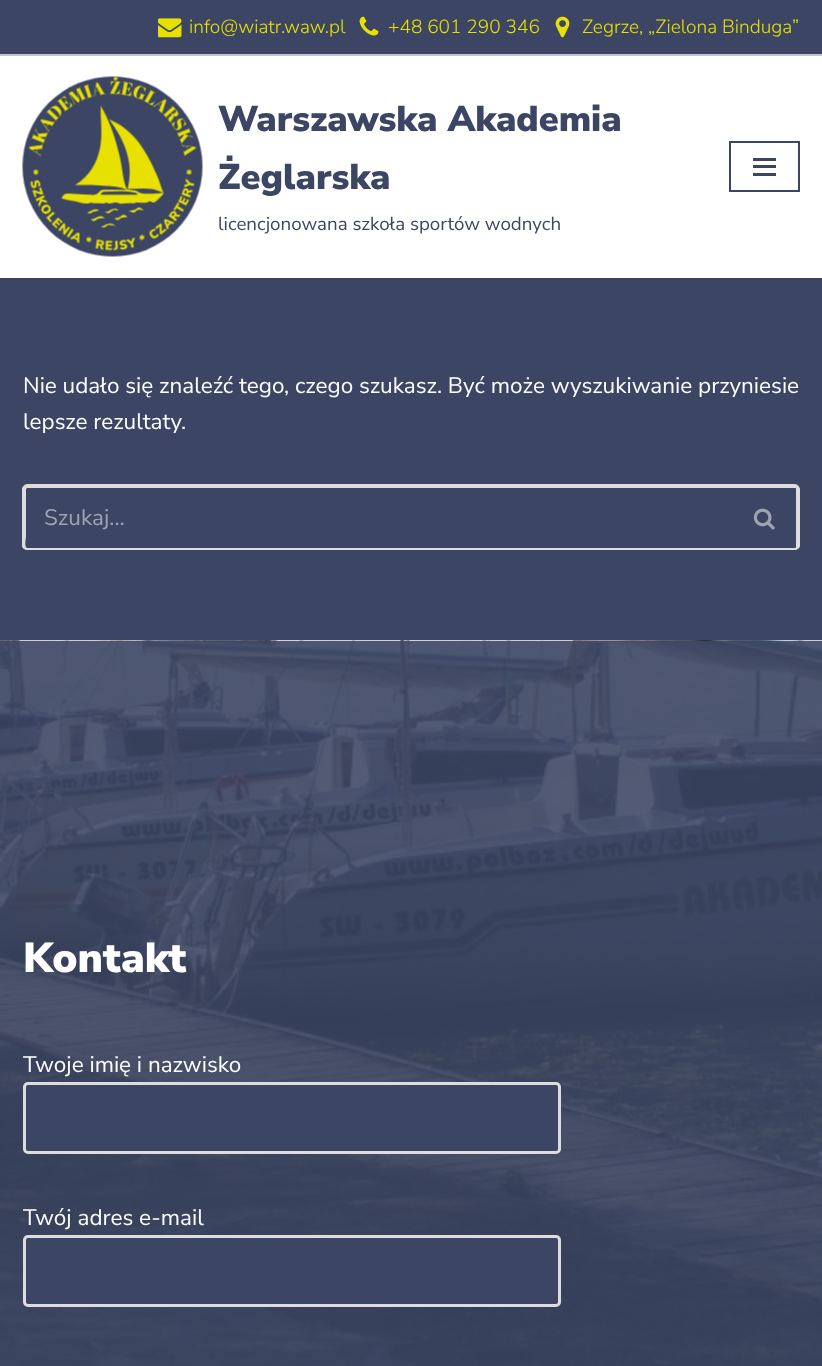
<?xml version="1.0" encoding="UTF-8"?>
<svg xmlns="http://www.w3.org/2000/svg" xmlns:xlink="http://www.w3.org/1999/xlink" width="822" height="1366">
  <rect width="100%" height="100%" fill="#3c4664" />
  <rect y="54" width="822" height="2" fill="#bfc4cf" />
  <image x="158" y="18" width="24" height="20" xlink:href="image1.png" />
  <image x="359" y="16" width="20" height="20" xlink:href="image2.png" />
  <image x="555" y="16" width="15" height="22" xlink:href="image3.png" />
  <rect y="56" width="822" height="222" fill="#ffffff" />
  <image x="22" y="76" width="181" height="181" xlink:href="image4.png" />
  <rect x="730" y="142" width="69" height="49" fill="none" stroke="#3c4664" stroke-width="2" />
  <rect x="753" y="158" width="23" height="3" fill="#3c4664" />
  <rect x="753" y="165" width="23" height="3" fill="#3c4664" />
  <rect x="753" y="173" width="23" height="3" fill="#3c4664" />
  <path d="M 27 484 h 705 v 66 h -705 c -2 0 -5 -2 -5 -4 v -57 c 0 -2 3 -5 5 -5 z m 0 4 h 705 v 60 h -705 c -3 -1 -1 -9 -1 -12 v -47 z" fill="#dddddd" fill-rule="evenodd" />
  <path d="M 732 484 h 63 c 2 0 5 3 5 5 v 57 c 0 2 -3 4 -5 4 h -63 z m 0 4 h 63 c 1 0 1 0 1 1 v 57 c 0 1 0 2 -1 2 h -63 z" fill="#dddddd" fill-rule="evenodd" />
  <image x="753" y="508" width="22" height="22" xlink:href="image5.png" />
  <image x="0" y="640" width="822" height="726" xlink:href="image6.png" />
  <rect x="24.5" y="1083.5" width="535" height="69" rx="3.5" fill="#3c4664" stroke="#dddddd" stroke-width="3" />
  <rect x="24.5" y="1236.5" width="535" height="69" rx="3.5" fill="#3c4664" stroke="#dddddd" stroke-width="3" />
  <text x="189" y="33" style="font-family: Nunito Sans; font-size: 19.1px; font-weight: 300; fill: #e7e000">info@wiatr.waw.pl</text>
  <text x="388" y="33" style="font-family: Nunito Sans; font-size: 19.1px; font-weight: 300; fill: #e7e000">+48 601 290 346</text>
  <text x="582" y="33" style="font-family: Nunito Sans; font-size: 19.1px; font-weight: 300; fill: #e7e000">Zegrze, „Zielona Binduga”</text>
  <text x="218" y="131" style="font-family: Nunito Sans; font-size: 36px; font-weight: 900; fill: #3c4664">Warszawska Akademia</text>
  <text x="218" y="189" style="font-family: Nunito Sans; font-size: 36px; font-weight: 900; fill: #3c4664">Żeglarska</text>
  <text x="218" y="230" style="font-family: Nunito Sans; font-size: 18.75px; fill: #3c4664">licencjonowana szkoła sportów wodnych</text>
  <text x="23" y="393" style="font-family: Nunito Sans; font-size: 22.5px; fill: #ffffff">Nie udało się znaleźć tego, czego szukasz. Być może wyszukiwanie przyniesie</text>
  <text x="23" y="429" style="font-family: Nunito Sans; font-size: 22.5px; fill: #ffffff">lepsze rezultaty.</text>
  <text x="44" y="525" style="font-family: Nunito Sans; font-size: 22.5px; fill: #9ea3b2">Szukaj...</text>
  <text x="23" y="972" style="font-family: Nunito Sans; font-size: 42px; font-weight: 900; fill: #ffffff">Kontakt</text>
  <text x="23" y="1072" style="font-family: Nunito Sans; font-size: 22.5px; fill: #ffffff">Twoje imię i nazwisko</text>
  <text x="23" y="1225" style="font-family: Nunito Sans; font-size: 22.5px; fill: #ffffff">Twój adres e-mail</text>
</svg>
